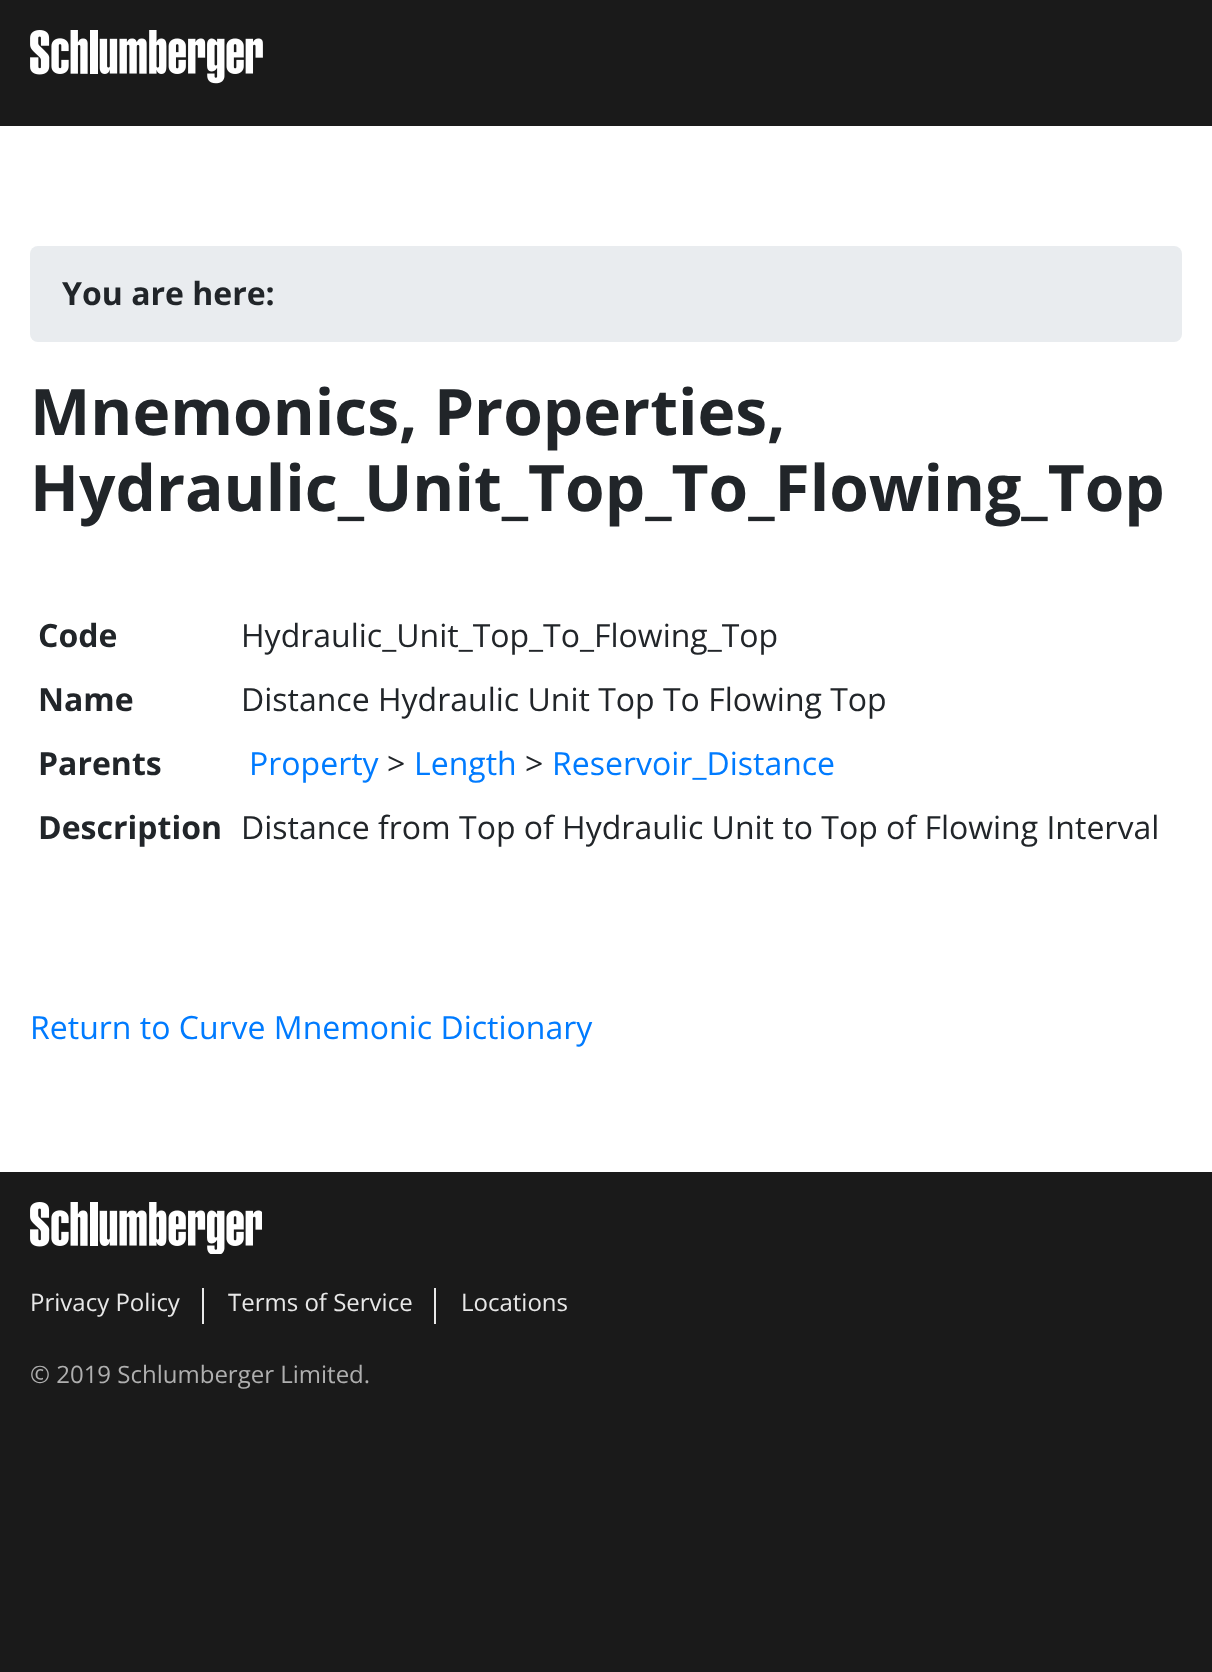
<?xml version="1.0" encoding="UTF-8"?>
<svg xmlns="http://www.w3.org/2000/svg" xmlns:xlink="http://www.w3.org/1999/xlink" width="1212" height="1672">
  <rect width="100%" height="100%" fill="#1a1a1a" />
  <image x="30" y="30" width="233" height="54" xlink:href="image1.png" />
  <rect y="126" width="1212" height="1046" fill="#ffffff" />
  <rect x="30" y="246" width="1152" height="96" rx="8" fill="#e9ecef" />
  <image x="30" y="1202" width="232" height="52" xlink:href="image2.png" />
  <rect x="202" y="1288" width="2" height="36" fill="#e8e8e8" />
  <rect x="434" y="1288" width="2" height="36" fill="#e8e8e8" />
  <text x="62" y="305" style="font-family: Open Sans; font-size: 32px; font-weight: bold; fill: #212529">You are here:</text>
  <text x="30" y="435" style="font-family: Open Sans; font-size: 64px; font-weight: bold; fill: #212529">Mnemonics, Properties,</text>
  <text x="30" y="511" style="font-family: Open Sans; font-size: 64px; font-weight: bold; fill: #212529">Hydraulic_Unit_Top_To_Flowing_Top</text>
  <text x="38" y="647" style="font-family: Open Sans; font-size: 32px; font-weight: bold; fill: #212529">Code</text>
  <text x="241" y="647" style="font-family: Open Sans; font-size: 32px; fill: #212529">Hydraulic_Unit_Top_To_Flowing_Top</text>
  <text x="38" y="711" style="font-family: Open Sans; font-size: 32px; font-weight: bold; fill: #212529">Name</text>
  <text x="241" y="711" style="font-family: Open Sans; font-size: 32px; fill: #212529">Distance Hydraulic Unit Top To Flowing Top</text>
  <text x="38" y="775" style="font-family: Open Sans; font-size: 32px; font-weight: bold; fill: #212529">Parents</text>
  <text x="249" y="775" style="font-family: Open Sans; font-size: 32px; fill: #007bff">Property</text>
  <text x="387" y="775" style="font-family: Open Sans; font-size: 32px; fill: #212529">&gt;</text>
  <text x="414" y="775" style="font-family: Open Sans; font-size: 32px; fill: #007bff">Length</text>
  <text x="525" y="775" style="font-family: Open Sans; font-size: 32px; fill: #212529">&gt;</text>
  <text x="552" y="775" style="font-family: Open Sans; font-size: 32px; fill: #007bff">Reservoir_Distance</text>
  <text x="38" y="839" style="font-family: Open Sans; font-size: 32px; font-weight: bold; fill: #212529">Description</text>
  <text x="241" y="839" style="font-family: Open Sans; font-size: 32px; fill: #212529">Distance from Top of Hydraulic Unit to Top of Flowing Interval</text>
  <text x="30" y="1039" style="font-family: Open Sans; font-size: 32px; fill: #007bff">Return to Curve Mnemonic Dictionary</text>
  <text x="30" y="1311" style="font-family: Open Sans; font-size: 24px; fill: #e8e8e8">Privacy Policy</text>
  <text x="228" y="1311" style="font-family: Open Sans; font-size: 24px; fill: #e8e8e8">Terms of Service</text>
  <text x="461" y="1311" style="font-family: Open Sans; font-size: 24px; fill: #e8e8e8">Locations</text>
  <text x="30" y="1383" style="font-family: Open Sans; font-size: 24px; fill: #afafaf">© 2019 Schlumberger Limited.</text>
</svg>
